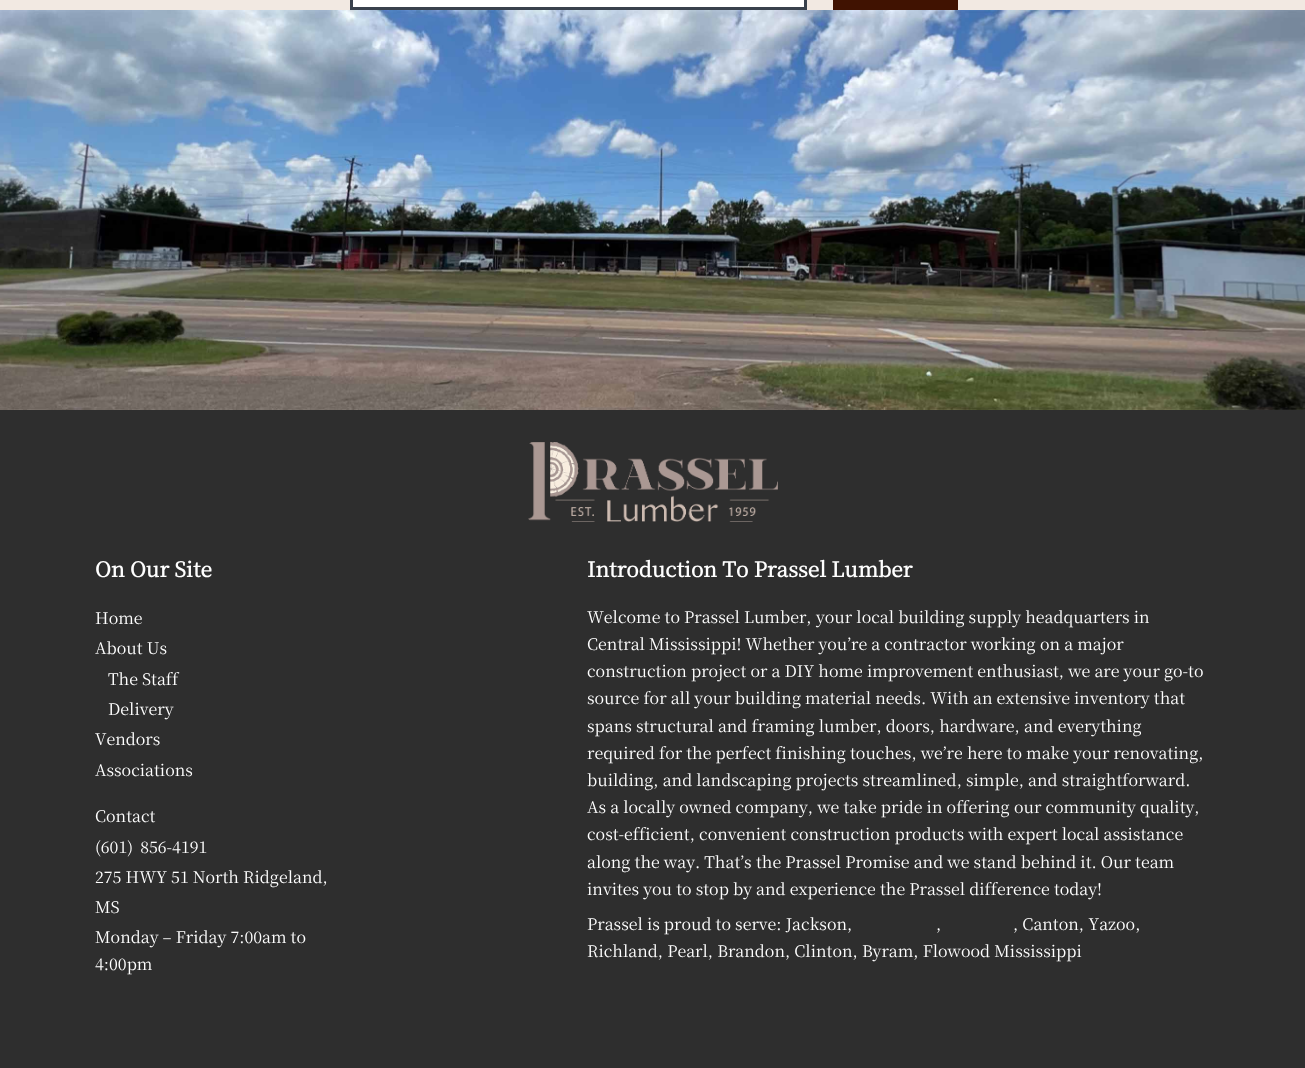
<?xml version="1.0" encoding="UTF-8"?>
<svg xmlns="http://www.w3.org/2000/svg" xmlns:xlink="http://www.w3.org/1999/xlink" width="1305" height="1068">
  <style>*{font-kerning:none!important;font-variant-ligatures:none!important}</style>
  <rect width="100%" height="100%" fill="#f2e9e2" />
  <rect x="351.5" y="-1.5" width="454" height="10" fill="#ffffff" stroke="#39414d" stroke-width="3" />
  <rect x="833" width="125" height="10" fill="#401201" />
  <image x="0" y="10" width="1305" height="400" xlink:href="image1.png" />
  <rect y="410" width="1305" height="658" fill="#2e2e2e" />
  <image x="528" y="442" width="250" height="80" xlink:href="image2.png" />
  <text x="95" y="577" style="font-family: Noto Serif JP; font-size: 20.75px; font-weight: bold; fill: #ffffff">On Our Site</text>
  <text x="95" y="624" style="font-family: Noto Serif JP; font-size: 16px; font-weight: 200; fill: #ffffff">Home</text>
  <text x="95" y="654" style="font-family: Noto Serif JP; font-size: 16px; font-weight: 200; fill: #ffffff">About Us</text>
  <text x="108" y="685" style="font-family: Noto Serif JP; font-size: 16px; font-weight: 200; fill: #ffffff">The Staff</text>
  <text x="108" y="715" style="font-family: Noto Serif JP; font-size: 16px; font-weight: 200; fill: #ffffff">Delivery</text>
  <text x="95" y="745" style="font-family: Noto Serif JP; font-size: 16px; font-weight: 200; fill: #ffffff">Vendors</text>
  <text x="95" y="776" style="font-family: Noto Serif JP; font-size: 16px; font-weight: 200; fill: #ffffff">Associations</text>
  <text x="95" y="822" style="font-family: Noto Serif JP; font-size: 16px; font-weight: 200; fill: #ffffff">Contact</text>
  <text x="95" y="853" word-spacing="3" style="font-family: Noto Serif JP; font-size: 16px; font-weight: 200; fill: #ffffff">(601) 856-4191</text>
  <text x="95" y="883" style="font-family: Noto Serif JP; font-size: 16px; font-weight: 200; fill: #ffffff">275 HWY 51 North Ridgeland,</text>
  <text x="95" y="913" style="font-family: Noto Serif JP; font-size: 16px; font-weight: 200; fill: #ffffff">MS</text>
  <text x="95" y="943" style="font-family: Noto Serif JP; font-size: 16px; font-weight: 200; fill: #ffffff">Monday – Friday 7:00am to</text>
  <text x="95" y="970" style="font-family: Noto Serif JP; font-size: 16px; font-weight: 200; fill: #ffffff">4:00pm</text>
  <text x="587" y="577" style="font-family: Noto Serif JP; font-size: 20.75px; font-weight: bold; fill: #ffffff">Introduction To Prassel Lumber</text>
  <text x="587" y="623" style="font-family: Noto Serif JP; font-size: 16px; font-weight: 200; fill: #ffffff">Welcome to Prassel Lumber,</text>
  <text x="816" y="623" style="font-family: Noto Serif JP; font-size: 16px; font-weight: 200; fill: #ffffff">your local building supply headquarters in</text>
  <text x="587" y="650" style="font-family: Noto Serif JP; font-size: 16px; font-weight: 200; fill: #ffffff">Central Mississippi! Whether you’re a contractor working</text>
  <text x="1040" y="650" style="font-family: Noto Serif JP; font-size: 16px; font-weight: 200; fill: #ffffff">on a major</text>
  <text x="587" y="677" style="font-family: Noto Serif JP; font-size: 16px; font-weight: 200; fill: #ffffff">construction project or a DIY home improvement enthusiast, we are your go-to</text>
  <text x="587" y="704" style="font-family: Noto Serif JP; font-size: 16px; font-weight: 200; fill: #ffffff">source for all your building material needs. With an extensive inventory that</text>
  <text x="587" y="732" style="font-family: Noto Serif JP; font-size: 16px; font-weight: 200; fill: #ffffff">spans structural and framing lumber, doors, hardware,</text>
  <text x="1024" y="732" style="font-family: Noto Serif JP; font-size: 16px; font-weight: 200; fill: #ffffff">and everything</text>
  <text x="587" y="759" style="font-family: Noto Serif JP; font-size: 16px; font-weight: 200; fill: #ffffff">required for the perfect finishing touches, we’re</text>
  <text x="967" y="759" style="font-family: Noto Serif JP; font-size: 16px; font-weight: 200; fill: #ffffff">here to make your renovating,</text>
  <text x="587" y="786" style="font-family: Noto Serif JP; font-size: 16px; font-weight: 200; fill: #ffffff">building, and landscaping projects streamlined, simple, and straightforward.</text>
  <text x="587" y="813" style="font-family: Noto Serif JP; font-size: 16px; font-weight: 200; fill: #ffffff">As a locally owned company, we take pride in offering</text>
  <text x="1014" y="813" style="font-family: Noto Serif JP; font-size: 16px; font-weight: 200; fill: #ffffff">our community quality,</text>
  <text x="587" y="840" style="font-family: Noto Serif JP; font-size: 16px; font-weight: 200; fill: #ffffff">cost-efficient, convenient construction products with expert local assistance</text>
  <text x="587" y="868" style="font-family: Noto Serif JP; font-size: 16px; font-weight: 200; fill: #ffffff">along the way. That’s</text>
  <text x="756" y="868" style="font-family: Noto Serif JP; font-size: 16px; font-weight: 200; fill: #ffffff">the Prassel Promise and we stand behind it. Our team</text>
  <text x="587" y="895" style="font-family: Noto Serif JP; font-size: 16px; font-weight: 200; fill: #ffffff">invites you to stop by and experience the Prassel difference today!</text>
  <text x="587" y="930" style="font-family: Noto Serif JP; font-size: 16px; font-weight: 200; fill: #ffffff">Prassel is proud to serve: Jackson,</text>
  <text x="936" y="930" style="font-family: Noto Serif JP; font-size: 16px; font-weight: 200; fill: #ffffff">,</text>
  <text x="1013" y="930" style="font-family: Noto Serif JP; font-size: 16px; font-weight: 200; fill: #ffffff">, Canton, Yazoo,</text>
  <text x="587" y="957" style="font-family: Noto Serif JP; font-size: 16px; font-weight: 200; fill: #ffffff">Richland, Pearl, Brandon, Clinton, Byram, Flowood Mississippi</text>
</svg>
